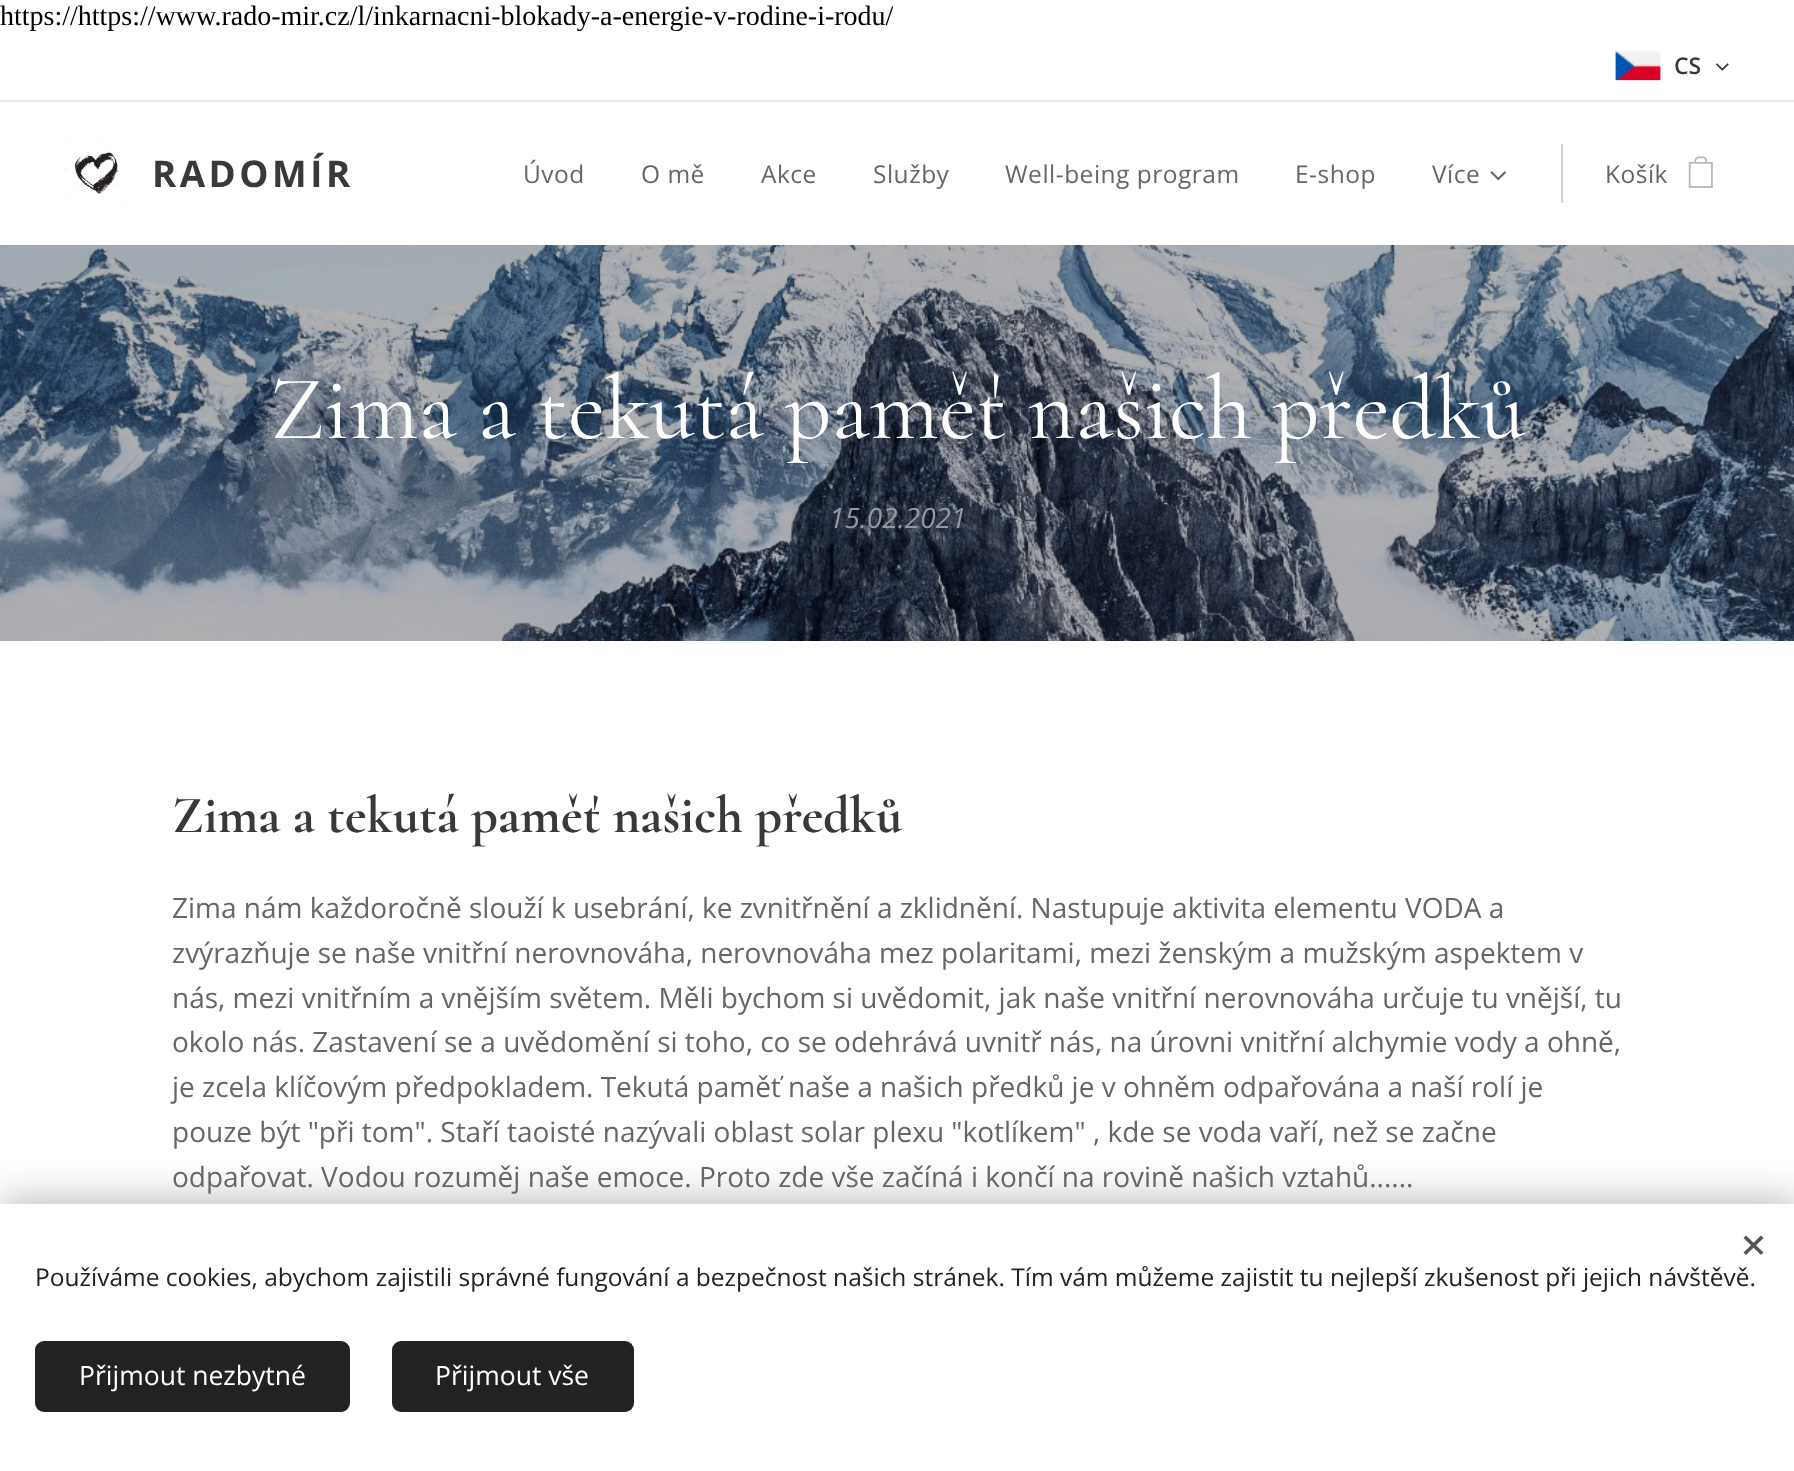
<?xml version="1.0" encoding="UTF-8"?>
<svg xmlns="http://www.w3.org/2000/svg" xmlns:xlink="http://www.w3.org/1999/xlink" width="1794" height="1471">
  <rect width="100%" height="100%" fill="#ffffff" />
  <image x="1615" y="50" width="46" height="31" xlink:href="image1.png" />
  <image x="1716" y="63" width="13" height="8" xlink:href="image2.png" />
  <rect y="100" width="1794" height="2" fill="#e8e8e8" />
  <image x="63" y="139" width="66" height="68" xlink:href="image3.png" />
  <image x="1490" y="171" width="16" height="10" xlink:href="image4.png" />
  <rect x="1561" y="144" width="2" height="59" fill="#d1d1d1" />
  <image x="1688" y="156" width="25" height="32" xlink:href="image5.png" />
  <image x="0" y="245" width="1794" height="396" xlink:href="image6.png" />
  <rect y="1204" width="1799" height="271" fill="#000000" fill-opacity="0.33" filter="blur(22px)" />
  <rect y="1204" width="1794" height="267" fill="#ffffff" />
  <path d="M 1743.5 1252.5 l 17.5 -17 l 2.5 2.5 l -17.5 17 z" fill="#555555" />
  <path d="M 1746 1235.5 l 17.5 17 l -2.5 2.5 l -17.5 -17 z" fill="#555555" />
  <rect x="35" y="1341" width="315" height="71" rx="9" fill="#222222" />
  <rect x="392" y="1341" width="242" height="71" rx="9" fill="#222222" />
  <text x="0" y="25" style="font-family: Liberation Serif; font-size: 28px; fill: #000000">https://https://www.rado-mir.cz/l/inkarnacni-blokady-a-energie-v-rodine-i-rodu/</text>
  <text x="1674" y="74" style="font-family: Open Sans; font-size: 23px; font-weight: 600; fill: #393939">CS</text>
  <text x="152" y="187" style="font-family: Open Sans; font-size: 36.75px; font-weight: bold; letter-spacing: 3.5px; fill: #393939">RADOMÍR</text>
  <text x="523" y="183" style="font-family: Open Sans; font-size: 24.5px; letter-spacing: 0.5px; fill: #666666">Úvod</text>
  <text x="641" y="183" style="font-family: Open Sans; font-size: 24.5px; letter-spacing: 0.5px; fill: #666666">O mě</text>
  <text x="761" y="183" style="font-family: Open Sans; font-size: 24.5px; letter-spacing: 0.5px; fill: #666666">Akce</text>
  <text x="873" y="183" style="font-family: Open Sans; font-size: 24.5px; letter-spacing: 0.5px; fill: #666666">Služby</text>
  <text x="1005" y="183" style="font-family: Open Sans; font-size: 24.5px; letter-spacing: 0.5px; fill: #666666">Well-being program</text>
  <text x="1295" y="183" style="font-family: Open Sans; font-size: 24.5px; letter-spacing: 0.5px; fill: #666666">E-shop</text>
  <text x="1432" y="183" style="font-family: Open Sans; font-size: 24.5px; letter-spacing: 0.5px; fill: #666666">Více</text>
  <text x="1605" y="183" style="font-family: Open Sans; font-size: 24.5px; letter-spacing: 0.5px; fill: #666666">Košík</text>
  <text x="270" y="438" style="font-family: Cormorant; font-size: 91px; fill: #ffffff">Zima a tekutá paměť našich předků</text>
  <text x="829" y="528" style="font-family: Open Sans; font-size: 28px; font-style: italic; fill: #9498a1">15.02.2021</text>
  <text x="172" y="832" style="font-family: Cormorant; font-size: 52.5px; font-weight: bold; fill: #393939">Zima a tekutá paměť našich předků</text>
  <text x="172" y="918" style="font-family: Open Sans; font-size: 28px; fill: #666666">Zima nám každoročně slouží k usebrání, ke zvnitřnění a zklidnění. Nastupuje aktivita elementu VODA a</text>
  <text x="172" y="963" style="font-family: Open Sans; font-size: 28px; fill: #666666">zvýrazňuje se naše vnitřní nerovnováha, nerovnováha mez polaritami, mezi ženským a mužským aspektem v</text>
  <text x="172" y="1008" style="font-family: Open Sans; font-size: 28px; fill: #666666">nás, mezi vnitřním a vnějším světem. Měli bychom si uvědomit, jak naše vnitřní nerovnováha určuje tu vnější, tu</text>
  <text x="172" y="1052" style="font-family: Open Sans; font-size: 28px; fill: #666666">okolo nás. Zastavení se a uvědomění si toho, co se odehrává uvnitř nás, na úrovni vnitřní alchymie vody a ohně,</text>
  <text x="172" y="1097" style="font-family: Open Sans; font-size: 28px; fill: #666666">je zcela klíčovým předpokladem. Tekutá paměť naše a našich předků je v ohněm odpařována a naší rolí je</text>
  <text x="172" y="1142" style="font-family: Open Sans; font-size: 28px; fill: #666666">pouze být "při tom". Staří taoisté nazývali oblast solar plexu "kotlíkem" , kde se voda vaří, než se začne</text>
  <text x="172" y="1187" style="font-family: Open Sans; font-size: 28px; fill: #666666">odpařovat. Vodou rozuměj naše emoce. Proto zde vše začíná i končí na rovině našich vztahů......</text>
  <text x="35" y="1286" style="font-family: Open Sans; font-size: 24.5px; fill: #222222">Používáme cookies, abychom zajistili správné fungování a bezpečnost našich stránek. Tím vám můžeme zajistit tu nejlepší zkušenost při jejich návštěvě.</text>
  <text x="79" y="1385" style="font-family: Open Sans; font-size: 26.5px; fill: #ffffff">Přijmout nezbytné</text>
  <text x="435" y="1385" style="font-family: Open Sans; font-size: 26.5px; fill: #ffffff">Přijmout vše</text>
</svg>
